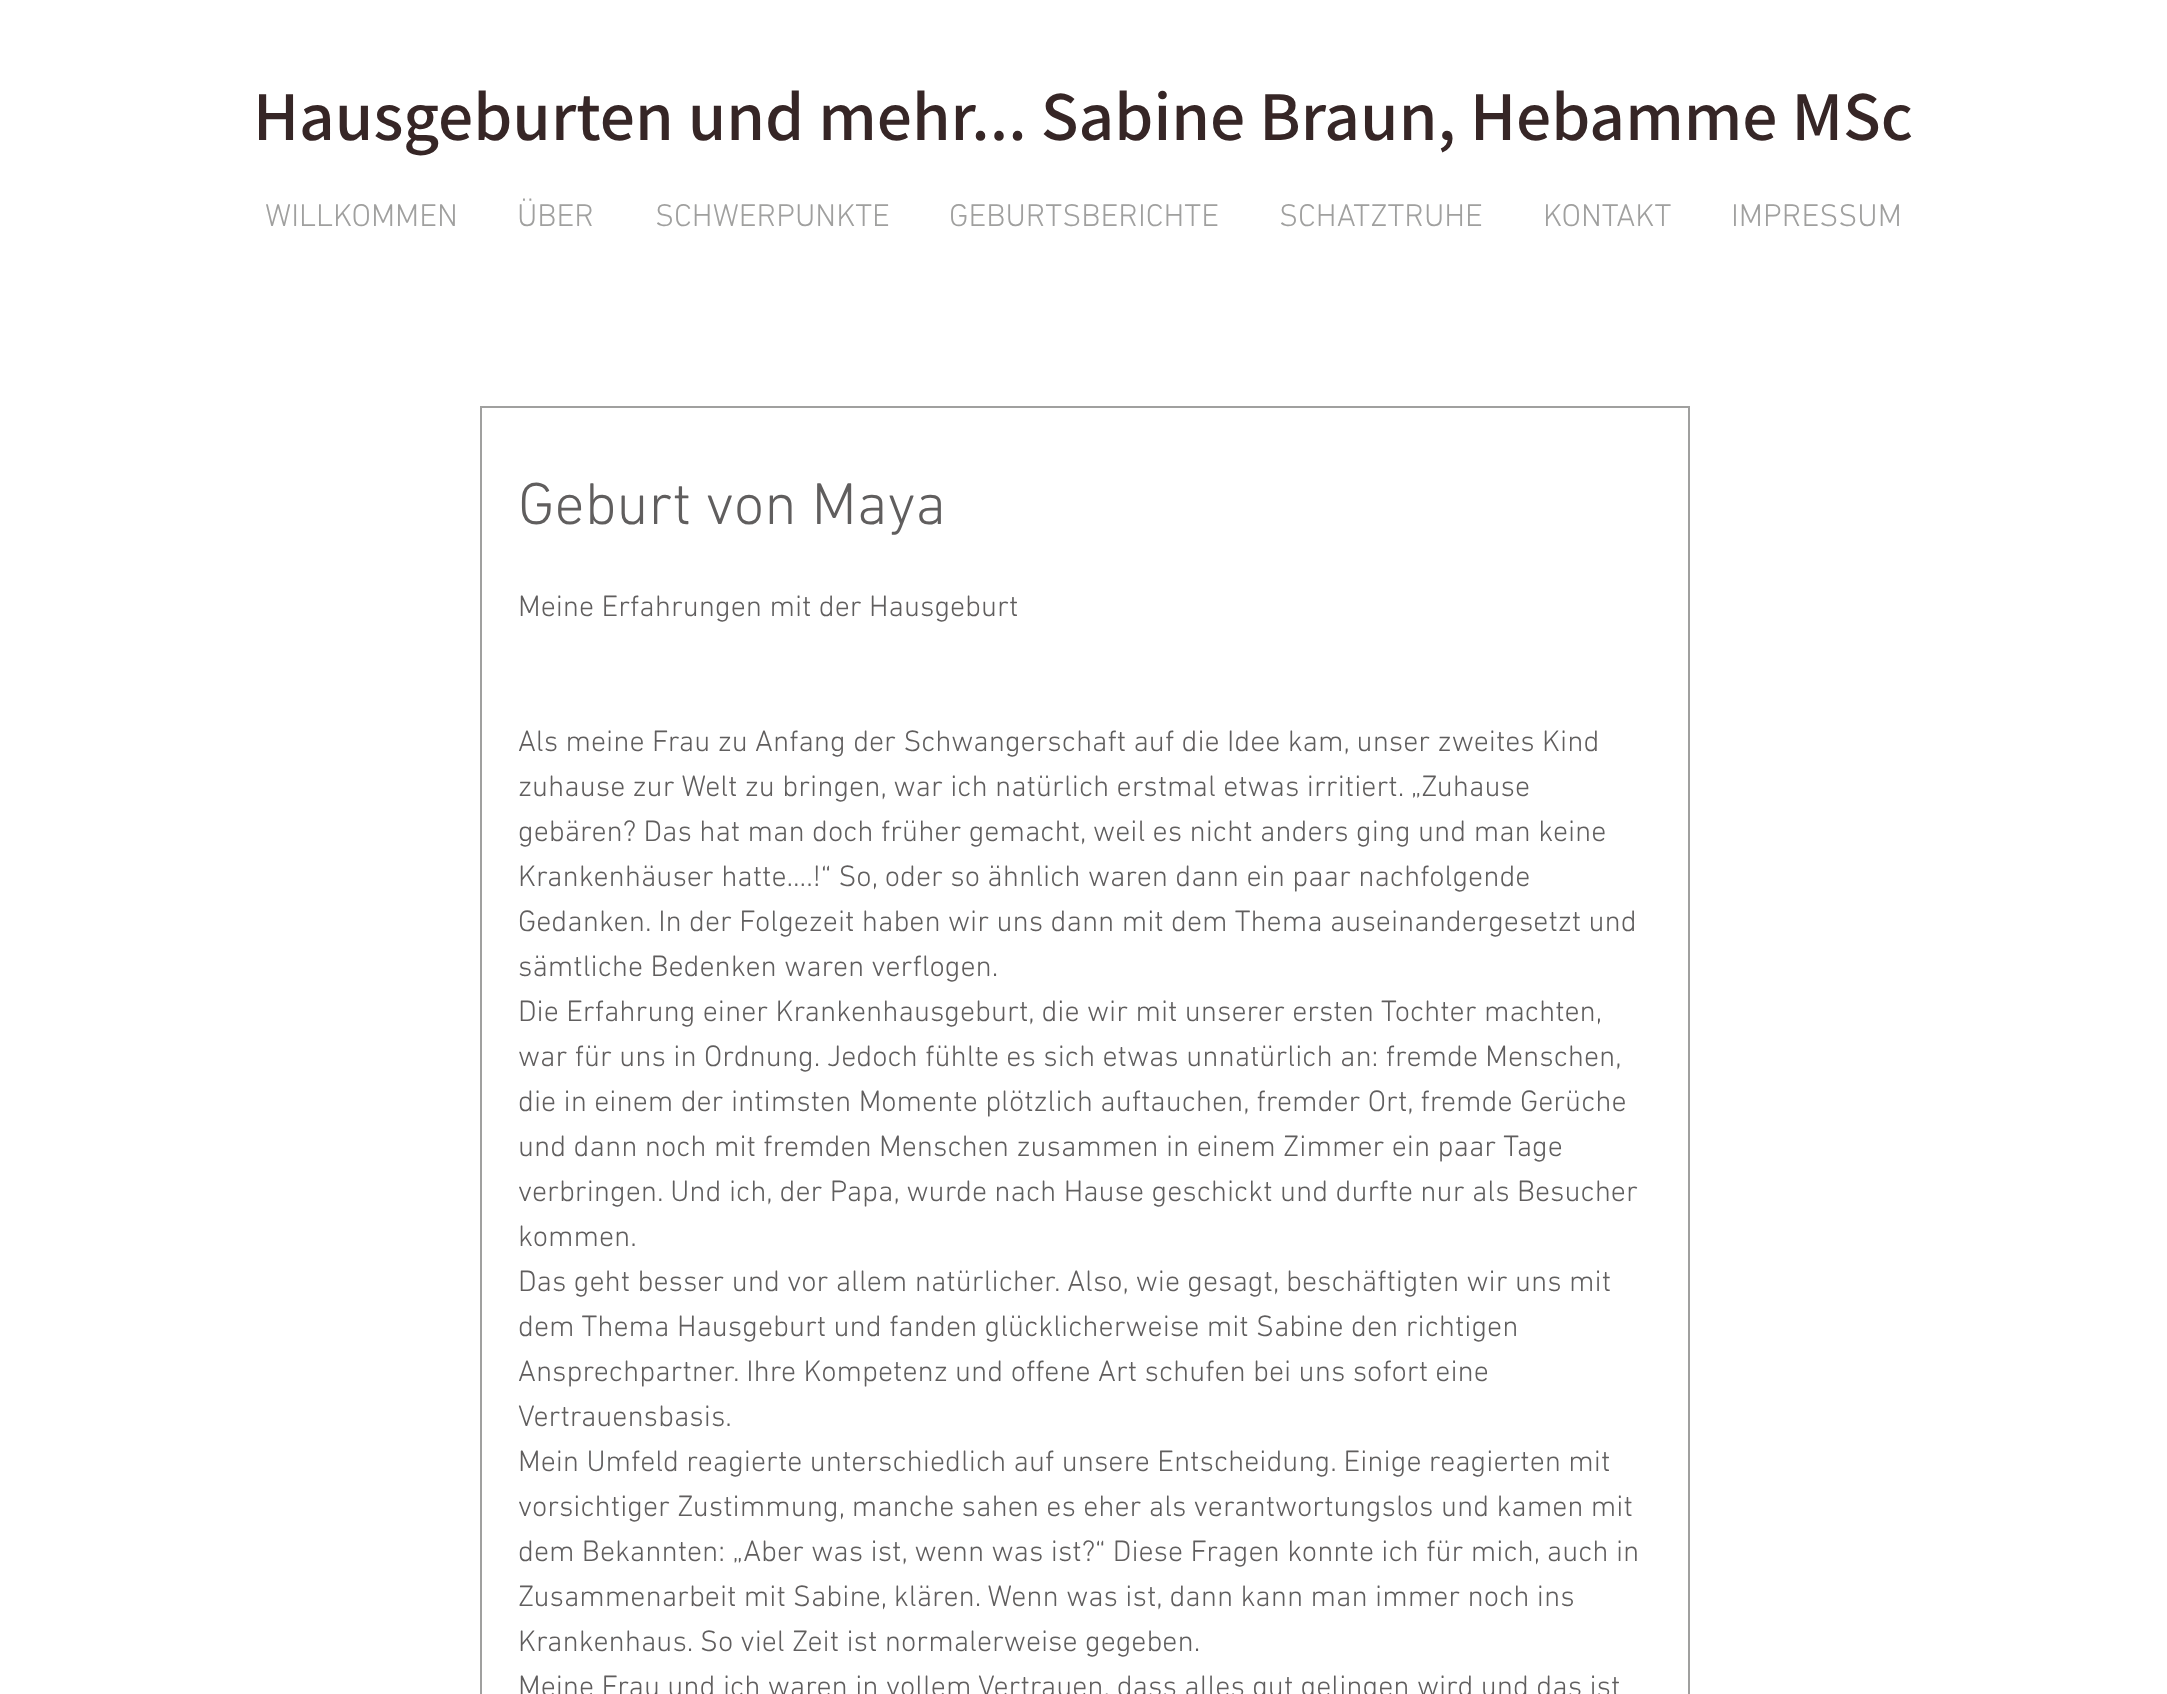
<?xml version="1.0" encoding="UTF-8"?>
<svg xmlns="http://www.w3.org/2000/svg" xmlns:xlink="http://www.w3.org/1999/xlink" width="2167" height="1694">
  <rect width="100%" height="100%" fill="#ffffff" />
  <rect x="481" y="407" width="1208" height="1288" fill="none" stroke="#a0a09f" stroke-width="2" />
  <text x="253" y="140" style="font-family: Assistant; font-size: 70px; font-weight: 600; fill: #362626">Hausgeburten und mehr... Sabine Braun, Hebamme MSc</text>
  <text x="265" y="226" style="font-family: 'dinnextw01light'; font-size: 32px; font-weight: 300; fill: #a0a09f">WILLKOMMEN</text>
  <text x="517" y="226" style="font-family: 'dinnextw01light'; font-size: 32px; font-weight: 300; fill: #a0a09f">ÜBER</text>
  <text x="655" y="226" style="font-family: 'dinnextw01light'; font-size: 32px; font-weight: 300; fill: #a0a09f">SCHWERPUNKTE</text>
  <text x="949" y="226" style="font-family: 'dinnextw01light'; font-size: 32px; font-weight: 300; fill: #a0a09f">GEBURTSBERICHTE</text>
  <text x="1279" y="226" style="font-family: 'dinnextw01light'; font-size: 32px; font-weight: 300; fill: #a0a09f">SCHATZTRUHE</text>
  <text x="1543" y="226" style="font-family: 'dinnextw01light'; font-size: 32px; font-weight: 300; fill: #a0a09f">KONTAKT</text>
  <text x="1731" y="226" style="font-family: 'dinnextw01light'; font-size: 32px; font-weight: 300; fill: #a0a09f">IMPRESSUM</text>
  <text x="518" y="524" style="font-family: 'dinnextw01light'; font-size: 60px; font-weight: 300; fill: #605e5e">Geburt von Maya</text>
  <text x="518" y="616" style="font-family: 'dinnextw01light'; font-size: 30px; font-weight: 300; fill: #605e5e">Meine Erfahrungen mit der Hausgeburt</text>
  <text x="518" y="751" style="font-family: 'dinnextw01light'; font-size: 30px; font-weight: 300; fill: #605e5e">Als meine Frau zu Anfang der Schwangerschaft auf die Idee kam, unser zweites Kind</text>
  <text x="518" y="796" style="font-family: 'dinnextw01light'; font-size: 30px; font-weight: 300; fill: #605e5e">zuhause zur Welt zu bringen, war ich natürlich erstmal etwas irritiert. „Zuhause</text>
  <text x="518" y="841" style="font-family: 'dinnextw01light'; font-size: 30px; font-weight: 300; fill: #605e5e">gebären? Das hat man doch früher gemacht, weil es nicht anders ging und man keine</text>
  <text x="518" y="886" style="font-family: 'dinnextw01light'; font-size: 30px; font-weight: 300; fill: #605e5e">Krankenhäuser hatte....!“ So, oder so ähnlich waren dann ein paar nachfolgende</text>
  <text x="518" y="931" style="font-family: 'dinnextw01light'; font-size: 30px; font-weight: 300; fill: #605e5e">Gedanken. In der Folgezeit haben wir uns dann mit dem Thema auseinandergesetzt und</text>
  <text x="518" y="976" style="font-family: 'dinnextw01light'; font-size: 30px; font-weight: 300; fill: #605e5e">sämtliche Bedenken waren verflogen.</text>
  <text x="518" y="1021" style="font-family: 'dinnextw01light'; font-size: 30px; font-weight: 300; fill: #605e5e">Die Erfahrung einer Krankenhausgeburt, die wir mit unserer ersten Tochter machten,</text>
  <text x="518" y="1066" style="font-family: 'dinnextw01light'; font-size: 30px; font-weight: 300; fill: #605e5e">war für uns in Ordnung. Jedoch fühlte es sich etwas unnatürlich an: fremde Menschen,</text>
  <text x="518" y="1111" style="font-family: 'dinnextw01light'; font-size: 30px; font-weight: 300; fill: #605e5e">die in einem der intimsten Momente plötzlich auftauchen, fremder Ort, fremde Gerüche</text>
  <text x="518" y="1156" style="font-family: 'dinnextw01light'; font-size: 30px; font-weight: 300; fill: #605e5e">und dann noch mit fremden Menschen zusammen in einem Zimmer ein paar Tage</text>
  <text x="518" y="1201" style="font-family: 'dinnextw01light'; font-size: 30px; font-weight: 300; fill: #605e5e">verbringen. Und ich, der Papa, wurde nach Hause geschickt und durfte nur als Besucher</text>
  <text x="518" y="1246" style="font-family: 'dinnextw01light'; font-size: 30px; font-weight: 300; fill: #605e5e">kommen.</text>
  <text x="518" y="1291" style="font-family: 'dinnextw01light'; font-size: 30px; font-weight: 300; fill: #605e5e">Das geht besser und vor allem natürlicher. Also, wie gesagt, beschäftigten wir uns mit</text>
  <text x="518" y="1336" style="font-family: 'dinnextw01light'; font-size: 30px; font-weight: 300; fill: #605e5e">dem Thema Hausgeburt und fanden glücklicherweise mit Sabine den richtigen</text>
  <text x="518" y="1381" style="font-family: 'dinnextw01light'; font-size: 30px; font-weight: 300; fill: #605e5e">Ansprechpartner. Ihre Kompetenz und offene Art schufen bei uns sofort eine</text>
  <text x="518" y="1426" style="font-family: 'dinnextw01light'; font-size: 30px; font-weight: 300; fill: #605e5e">Vertrauensbasis.</text>
  <text x="518" y="1471" style="font-family: 'dinnextw01light'; font-size: 30px; font-weight: 300; fill: #605e5e">Mein Umfeld reagierte unterschiedlich auf unsere Entscheidung. Einige reagierten mit</text>
  <text x="518" y="1516" style="font-family: 'dinnextw01light'; font-size: 30px; font-weight: 300; fill: #605e5e">vorsichtiger Zustimmung, manche sahen es eher als verantwortungslos und kamen mit</text>
  <text x="518" y="1561" style="font-family: 'dinnextw01light'; font-size: 30px; font-weight: 300; fill: #605e5e">dem Bekannten: „Aber was ist, wenn was ist?“ Diese Fragen konnte ich für mich, auch in</text>
  <text x="518" y="1606" style="font-family: 'dinnextw01light'; font-size: 30px; font-weight: 300; fill: #605e5e">Zusammenarbeit mit Sabine, klären. Wenn was ist, dann kann man immer noch ins</text>
  <text x="518" y="1651" style="font-family: 'dinnextw01light'; font-size: 30px; font-weight: 300; fill: #605e5e">Krankenhaus. So viel Zeit ist normalerweise gegeben.</text>
  <text x="518" y="1696" style="font-family: 'dinnextw01light'; font-size: 30px; font-weight: 300; fill: #605e5e">Meine Frau und ich waren in vollem Vertrauen, dass alles gut gelingen wird und das ist</text>
</svg>
